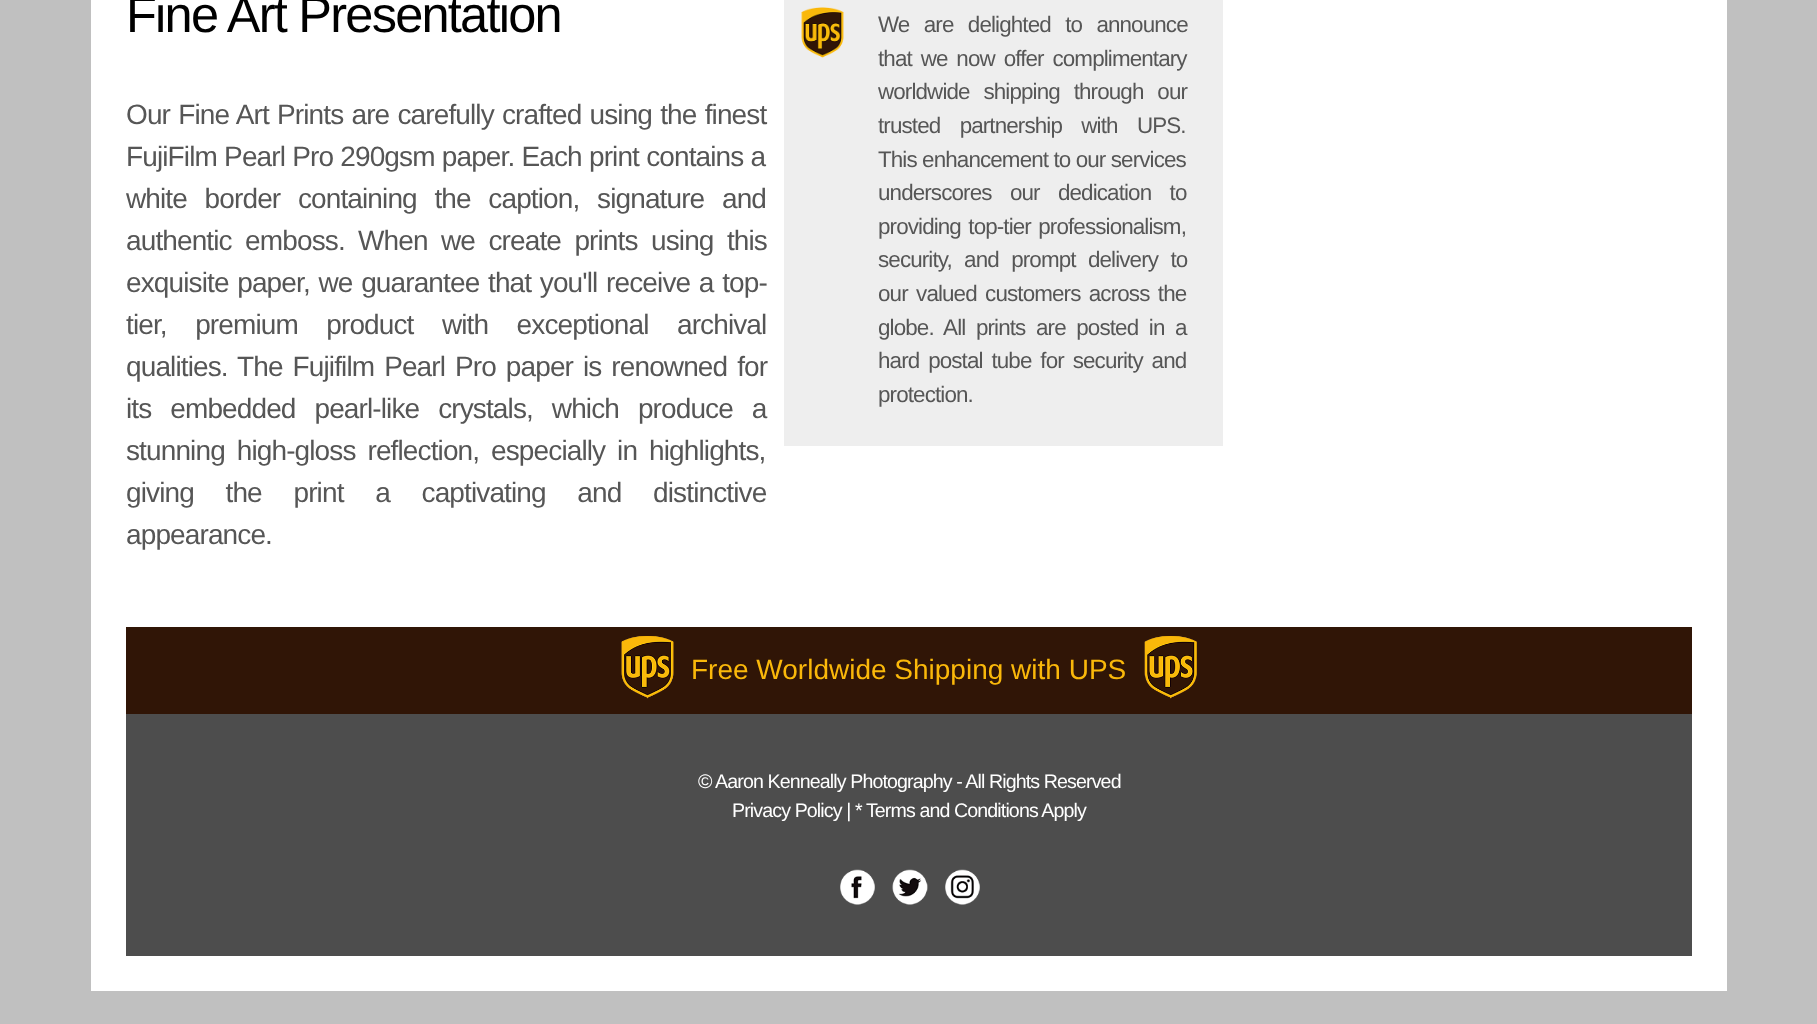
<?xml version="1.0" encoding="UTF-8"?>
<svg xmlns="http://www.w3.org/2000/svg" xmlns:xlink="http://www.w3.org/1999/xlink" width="1817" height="1024">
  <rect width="100%" height="100%" fill="#c0c0c0" />
  <rect x="91" width="1636" height="991" fill="#ffffff" />
  <rect x="784" width="439" height="446" fill="#eeeeee" />
  <image x="801" y="7" width="43" height="51" xlink:href="image1.png" />
  <rect x="126" y="627" width="1566" height="87" fill="#301506" />
  <image x="621" y="636" width="53" height="63" xlink:href="image2.png" />
  <image x="1144" y="636" width="53" height="63" xlink:href="image3.png" />
  <rect x="126" y="714" width="1566" height="242" fill="#4d4d4d" />
  <image x="840" y="869" width="35" height="36" xlink:href="image4.png" />
  <image x="892" y="869" width="36" height="36" xlink:href="image5.png" />
  <image x="945" y="869" width="35" height="36" xlink:href="image6.png" />
  <text x="126" y="32" style="font-family: Liberation Sans; font-size: 50.5px; letter-spacing: -1.75px; fill: #000000">Fine Art Presentation</text>
  <text x="126" y="124" word-spacing="1.25" style="font-family: Liberation Sans; font-size: 28px; letter-spacing: -0.88px; fill: #565656">Our Fine Art Prints are carefully crafted using the finest</text>
  <text x="126" y="166" word-spacing="0.25" style="font-family: Liberation Sans; font-size: 28px; letter-spacing: -0.88px; fill: #565656">FujiFilm Pearl Pro 290gsm paper. Each print contains a</text>
  <text x="126" y="208" word-spacing="10.75" style="font-family: Liberation Sans; font-size: 28px; letter-spacing: -0.88px; fill: #565656">white border containing the caption, signature and</text>
  <text x="126" y="250" word-spacing="6.5" style="font-family: Liberation Sans; font-size: 28px; letter-spacing: -0.88px; fill: #565656">authentic emboss.</text>
  <text x="358" y="250" word-spacing="6.5" style="font-family: Liberation Sans; font-size: 28px; letter-spacing: -0.88px; fill: #565656">When we create prints using this</text>
  <text x="126" y="292" word-spacing="1.75" style="font-family: Liberation Sans; font-size: 28px; letter-spacing: -0.88px; fill: #565656">exquisite paper, we guarantee that you'll receive a top-</text>
  <text x="126" y="334" word-spacing="21.5" style="font-family: Liberation Sans; font-size: 28px; letter-spacing: -0.88px; fill: #565656">tier, premium product with exceptional archival</text>
  <text x="126" y="376" word-spacing="3" style="font-family: Liberation Sans; font-size: 28px; letter-spacing: -0.88px; fill: #565656">qualities. The Fujifilm Pearl Pro paper is renowned for</text>
  <text x="126" y="418" word-spacing="12" style="font-family: Liberation Sans; font-size: 28px; letter-spacing: -0.88px; fill: #565656">its embedded pearl-like crystals, which produce a</text>
  <text x="126" y="460" word-spacing="5" style="font-family: Liberation Sans; font-size: 28px; letter-spacing: -0.88px; fill: #565656">stunning high-gloss reflection, especially in highlights,</text>
  <text x="126" y="502" word-spacing="24.75" style="font-family: Liberation Sans; font-size: 28px; letter-spacing: -0.88px; fill: #565656">giving the print a captivating and distinctive</text>
  <text x="126" y="544" style="font-family: Liberation Sans; font-size: 28px; letter-spacing: -0.88px; fill: #565656">appearance.</text>
  <text x="878" y="32" word-spacing="9" style="font-family: Liberation Sans; font-size: 22.4px; letter-spacing: -0.88px; fill: #565656">We are delighted to announce</text>
  <text x="878" y="66" word-spacing="3.5" style="font-family: Liberation Sans; font-size: 22.4px; letter-spacing: -0.88px; fill: #565656">that we now offer complimentary</text>
  <text x="878" y="99" word-spacing="8.5" style="font-family: Liberation Sans; font-size: 22.4px; letter-spacing: -0.88px; fill: #565656">worldwide shipping through our</text>
  <text x="878" y="133" word-spacing="14" style="font-family: Liberation Sans; font-size: 22.4px; letter-spacing: -0.88px; fill: #565656">trusted partnership with UPS.</text>
  <text x="878" y="167" style="font-family: Liberation Sans; font-size: 22.4px; letter-spacing: -0.88px; fill: #565656">This enhancement to our services</text>
  <text x="878" y="200" word-spacing="13" style="font-family: Liberation Sans; font-size: 22.4px; letter-spacing: -0.88px; fill: #565656">underscores our dedication to</text>
  <text x="878" y="234" word-spacing="2" style="font-family: Liberation Sans; font-size: 22.4px; letter-spacing: -0.88px; fill: #565656">providing top-tier professionalism,</text>
  <text x="878" y="267" word-spacing="7" style="font-family: Liberation Sans; font-size: 22.4px; letter-spacing: -0.88px; fill: #565656">security, and prompt delivery to</text>
  <text x="878" y="301" word-spacing="3" style="font-family: Liberation Sans; font-size: 22.4px; letter-spacing: -0.88px; fill: #565656">our valued customers across the</text>
  <text x="878" y="335" word-spacing="5.25" style="font-family: Liberation Sans; font-size: 22.4px; letter-spacing: -0.88px; fill: #565656">globe. All prints are posted in a</text>
  <text x="878" y="368" word-spacing="3.5" style="font-family: Liberation Sans; font-size: 22.4px; letter-spacing: -0.88px; fill: #565656">hard postal tube for security and</text>
  <text x="878" y="402" style="font-family: Liberation Sans; font-size: 22.4px; letter-spacing: -0.88px; fill: #565656">protection.</text>
  <text x="691" y="679" style="font-family: Liberation Sans; font-size: 28px; fill: #fab80a">Free Worldwide Shipping with UPS</text>
  <text x="698" y="788" style="font-family: Liberation Sans; font-size: 19.6px; letter-spacing: -0.88px; fill: #ffffff">© Aaron Kenneally Photography - All Rights Reserved</text>
  <text x="732" y="817" style="font-family: Liberation Sans; font-size: 19.6px; letter-spacing: -0.88px; fill: #ffffff">Privacy Policy | * Terms and Conditions Apply</text>
</svg>
